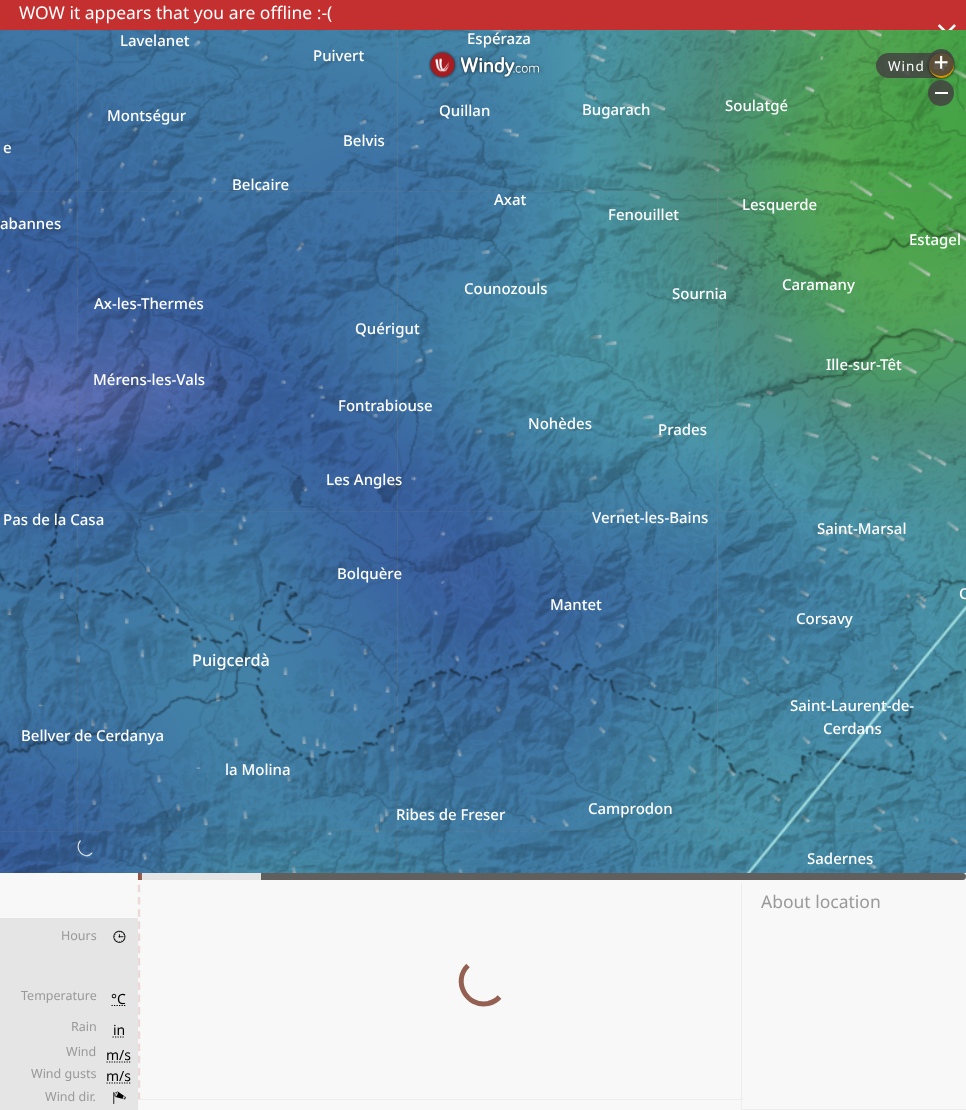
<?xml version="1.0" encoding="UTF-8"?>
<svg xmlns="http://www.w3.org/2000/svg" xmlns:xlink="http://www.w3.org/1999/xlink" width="966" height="1110">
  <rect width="100%" height="100%" fill="#808080" />
  <rect width="966" height="30" fill="#c42f2f" />
  <image x="937" y="24" width="19" height="6" xlink:href="image1.png" />
  <image x="77" y="191" width="321" height="321" xlink:href="image7.png" />
  <image x="397" y="191" width="321" height="321" xlink:href="image8.png" />
  <image x="77" y="30" width="321" height="162" xlink:href="image3.png" />
  <image x="77" y="511" width="321" height="321" xlink:href="image11.png" />
  <image x="0" y="191" width="78" height="321" xlink:href="image6.png" />
  <image x="0" y="30" width="78" height="162" xlink:href="image2.png" />
  <image x="397" y="30" width="321" height="162" xlink:href="image4.png" />
  <image x="717" y="30" width="249" height="161" xlink:href="image5.png" />
  <image x="397" y="511" width="321" height="321" xlink:href="image12.png" />
  <image x="717" y="191" width="249" height="321" xlink:href="image9.png" />
  <image x="0" y="511" width="78" height="321" xlink:href="image10.png" />
  <image x="717" y="511" width="249" height="321" xlink:href="image13.png" />
  <image x="77" y="831" width="321" height="42" xlink:href="image15.png" />
  <image x="0" y="831" width="78" height="42" xlink:href="image14.png" />
  <image x="397" y="831" width="321" height="42" xlink:href="image16.png" />
  <image x="717" y="831" width="249" height="42" xlink:href="image17.png" />
  <image x="0" y="30" width="966" height="843" xlink:href="image18.png" />
  <image x="0" y="30" width="78" height="161" xlink:href="image19.png" />
  <image x="78" y="30" width="320" height="161" xlink:href="image20.png" />
  <image x="398" y="30" width="320" height="161" xlink:href="image21.png" />
  <image x="718" y="30" width="248" height="161" xlink:href="image22.png" />
  <image x="77" y="191" width="321" height="321" xlink:href="image24.png" />
  <image x="0" y="191" width="78" height="320" xlink:href="image23.png" />
  <image x="397" y="191" width="321" height="321" xlink:href="image25.png" />
  <image x="718" y="191" width="248" height="320" xlink:href="image26.png" />
  <image x="77" y="511" width="321" height="321" xlink:href="image28.png" />
  <image x="0" y="511" width="78" height="320" xlink:href="image27.png" />
  <image x="397" y="511" width="321" height="321" xlink:href="image29.png" />
  <image x="718" y="511" width="248" height="320" xlink:href="image30.png" />
  <image x="0" y="831" width="78" height="42" xlink:href="image31.png" />
  <image x="78" y="831" width="320" height="42" xlink:href="image32.png" />
  <image x="398" y="831" width="320" height="42" xlink:href="image33.png" />
  <image x="718" y="831" width="248" height="42" xlink:href="image34.png" />
  <image x="746" y="605" width="220" height="268" xlink:href="image35.png" />
  <image x="428" y="50" width="29" height="29" xlink:href="image36.png" />
  <image x="459" y="55" width="83" height="24" xlink:href="image37.png" />
  <rect x="876" y="53" width="78" height="25" rx="12.5" fill="#444141" fill-opacity="0.84" />
  <rect x="929" y="53" width="25" height="25" rx="12.5" fill="#000000" filter="blur(1.5px)" />
  <circle cx="941.5" cy="65.5" r="12.5" fill="#d49500" />
  <image x="934" y="61" width="14" height="10" xlink:href="image38.png" />
  <rect x="928" y="49" width="26" height="27" rx="13" fill="#444141" fill-opacity="0.84" />
  <image x="934" y="55" width="14" height="14" xlink:href="image39.png" />
  <circle cx="941" cy="93" r="13" fill="#444141" fill-opacity="0.84" />
  <rect x="935" y="92" width="13" height="2" fill="#ffffff" />
  <path d="M 92 853 c -7.5 8.5 -19 -4.5 -11.5 -12.5" fill="none" stroke="#e5e5e5" stroke-width="1.2" />
  <rect y="873" width="966" height="237" fill="#f8f8f8" />
  <rect x="138" y="873" width="828" height="7" rx="3.5" fill="#615e5e" />
  <rect x="138" y="873" width="123" height="7" fill="#e5e5e5" />
  <rect x="138" y="873" width="4" height="7" fill="#946051" />
  <path d="M 139 872.5 v 227.5" fill="none" stroke="#9d0300" stroke-opacity="0.12" stroke-width="2.5" stroke-dasharray="7.5 4.72" />
  <rect x="741" y="1109" width="225" height="1" fill="#ededed" />
  <rect x="741" y="883" width="1" height="227" fill="#ededed" />
  <rect x="138" y="1099" width="605" height="1" fill="#ededed" />
  <rect y="918" width="138" height="192" fill="#e5e5e5" />
  <image x="113" y="930" width="13" height="13" xlink:href="image40.png" />
  <path d="M 111.5 1005.5 h 14.5" fill="none" stroke="#000000" stroke-width="1.2" stroke-dasharray="1.25 1.25" />
  <path d="M 112.5 1037 h 12.5" fill="none" stroke="#000000" stroke-width="1.2" stroke-dasharray="1.25 1.25" />
  <path d="M 106.5 1062 h 24.5" fill="none" stroke="#000000" stroke-width="1.2" stroke-dasharray="1.25 1.25" />
  <path d="M 106.5 1083 h 24.5" fill="none" stroke="#000000" stroke-width="1.2" stroke-dasharray="1.25 1.25" />
  <image x="113" y="1091" width="13" height="13" xlink:href="image41.png" />
  <path d="M 499.5 997 c -3 3.5 -7 5.5 -11.5 6.5 c -21.5 4 -36 -22.5 -20 -38" fill="none" stroke="#946051" stroke-width="5" />
  <text x="19" y="19" style="font-family: Noto Sans; font-size: 17.5px; fill: #ffffff">WOW it appears that you are offline :-(</text>
  <text x="120" y="46" style="font-family: Noto Sans; font-size: 15px; font-weight: 500; fill: #ffffff">Lavelanet</text>
  <text x="313" y="61" style="font-family: Noto Sans; font-size: 15px; font-weight: 500; fill: #ffffff">Puivert</text>
  <text x="107" y="121" style="font-family: Noto Sans; font-size: 15px; font-weight: 500; fill: #ffffff">Montségur</text>
  <text x="343" y="146" style="font-family: Noto Sans; font-size: 15px; font-weight: 500; fill: #ffffff">Belvis</text>
  <text x="232" y="190" style="font-family: Noto Sans; font-size: 15px; font-weight: 500; fill: #ffffff">Belcaire</text>
  <text x="467" y="44" style="font-family: Noto Sans; font-size: 15px; font-weight: 500; fill: #ffffff">Espéraza</text>
  <text x="439" y="116" style="font-family: Noto Sans; font-size: 15px; font-weight: 500; fill: #ffffff">Quillan</text>
  <text x="582" y="115" style="font-family: Noto Sans; font-size: 15px; font-weight: 500; fill: #ffffff">Bugarach</text>
  <text x="725" y="111" style="font-family: Noto Sans; font-size: 15px; font-weight: 500; fill: #ffffff">Soulatgé</text>
  <text x="3" y="153" style="font-family: Noto Sans; font-size: 15px; font-weight: 500; fill: #ffffff">e</text>
  <text x="0" y="229" style="font-family: Noto Sans; font-size: 15px; font-weight: 500; fill: #ffffff">abannes</text>
  <text x="494" y="205" style="font-family: Noto Sans; font-size: 15px; font-weight: 500; fill: #ffffff">Axat</text>
  <text x="608" y="220" style="font-family: Noto Sans; font-size: 15px; font-weight: 500; fill: #ffffff">Fenouillet</text>
  <text x="464" y="294" style="font-family: Noto Sans; font-size: 15px; font-weight: 500; fill: #ffffff">Counozouls</text>
  <text x="672" y="299" style="font-family: Noto Sans; font-size: 15px; font-weight: 500; fill: #ffffff">Sournia</text>
  <text x="528" y="429" style="font-family: Noto Sans; font-size: 15px; font-weight: 500; fill: #ffffff">Nohèdes</text>
  <text x="658" y="435" style="font-family: Noto Sans; font-size: 15px; font-weight: 500; fill: #ffffff">Prades</text>
  <text x="742" y="210" style="font-family: Noto Sans; font-size: 15px; font-weight: 500; fill: #ffffff">Lesquerde</text>
  <text x="909" y="245" style="font-family: Noto Sans; font-size: 15px; font-weight: 500; fill: #ffffff">Estagel</text>
  <text x="782" y="290" style="font-family: Noto Sans; font-size: 15px; font-weight: 500; fill: #ffffff">Caramany</text>
  <text x="826" y="370" style="font-family: Noto Sans; font-size: 15px; font-weight: 500; fill: #ffffff">Ille-sur-Têt</text>
  <text x="94" y="309" style="font-family: Noto Sans; font-size: 15px; font-weight: 500; fill: #ffffff">Ax-les-Thermes</text>
  <text x="355" y="334" style="font-family: Noto Sans; font-size: 15px; font-weight: 500; fill: #ffffff">Quérigut</text>
  <text x="93" y="385" style="font-family: Noto Sans; font-size: 15px; font-weight: 500; fill: #ffffff">Mérens-les-Vals</text>
  <text x="338" y="411" style="font-family: Noto Sans; font-size: 15px; font-weight: 500; fill: #ffffff">Fontrabiouse</text>
  <text x="326" y="485" style="font-family: Noto Sans; font-size: 15px; font-weight: 500; fill: #ffffff">Les Angles</text>
  <text x="3" y="525" style="font-family: Noto Sans; font-size: 15px; font-weight: 500; fill: #ffffff">Pas de la Casa</text>
  <text x="592" y="523" style="font-family: Noto Sans; font-size: 15px; font-weight: 500; fill: #ffffff">Vernet-les-Bains</text>
  <text x="550" y="610" style="font-family: Noto Sans; font-size: 15px; font-weight: 500; fill: #ffffff">Mantet</text>
  <text x="396" y="820" style="font-family: Noto Sans; font-size: 15px; font-weight: 500; fill: #ffffff">Ribes de Freser</text>
  <text x="588" y="814" style="font-family: Noto Sans; font-size: 15px; font-weight: 500; fill: #ffffff">Camprodon</text>
  <text x="337" y="579" style="font-family: Noto Sans; font-size: 15px; font-weight: 500; fill: #ffffff">Bolquère</text>
  <text x="192" y="666" style="font-family: Noto Sans; font-size: 16.25px; font-weight: 500; fill: #ffffff">Puigcerdà</text>
  <text x="21" y="741" style="font-family: Noto Sans; font-size: 15px; font-weight: 500; fill: #ffffff">Bellver de Cerdanya</text>
  <text x="225" y="775" style="font-family: Noto Sans; font-size: 15px; font-weight: 500; fill: #ffffff">la Molina</text>
  <text x="817" y="534" style="font-family: Noto Sans; font-size: 15px; font-weight: 500; fill: #ffffff">Saint-Marsal</text>
  <text x="959" y="599" style="font-family: Noto Sans; font-size: 15px; font-weight: 500; fill: #ffffff">C</text>
  <text x="796" y="624" style="font-family: Noto Sans; font-size: 15px; font-weight: 500; fill: #ffffff">Corsavy</text>
  <text x="790" y="711" style="font-family: Noto Sans; font-size: 15px; font-weight: 500; fill: #ffffff">Saint-Laurent-de-</text>
  <text x="823" y="734" style="font-family: Noto Sans; font-size: 15px; font-weight: 500; fill: #ffffff">Cerdans</text>
  <text x="807" y="864" style="font-family: Noto Sans; font-size: 15px; font-weight: 500; fill: #ffffff">Sadernes</text>
  <text x="888" y="71" style="font-family: Noto Sans; font-size: 13.5px; letter-spacing: 1px; fill: #ffffff">Wind</text>
  <text x="761" y="908" style="font-family: Noto Sans; font-size: 17.5px; fill: #999999">About location</text>
  <text x="61" y="940" style="font-family: Noto Sans; font-size: 12.5px; fill: #999999">Hours</text>
  <text x="21" y="1000" style="font-family: Noto Sans; font-size: 12.5px; fill: #999999">Temperature</text>
  <text x="111" y="1004" style="font-family: Noto Sans; font-size: 14px; fill: #000000">°C</text>
  <text x="71" y="1031" style="font-family: Noto Sans; font-size: 12.5px; fill: #999999">Rain</text>
  <text x="113" y="1035" style="font-family: Noto Sans; font-size: 14px; fill: #000000">in</text>
  <text x="66" y="1056" style="font-family: Noto Sans; font-size: 12.5px; fill: #999999">Wind</text>
  <text x="106" y="1060" style="font-family: Noto Sans; font-size: 14px; fill: #000000">m/s</text>
  <text x="31" y="1078" style="font-family: Noto Sans; font-size: 12.5px; fill: #999999">Wind gusts</text>
  <text x="106" y="1081" style="font-family: Noto Sans; font-size: 14px; fill: #000000">m/s</text>
  <text x="45" y="1101" style="font-family: Noto Sans; font-size: 12.5px; fill: #999999">Wind dir.</text>
</svg>
